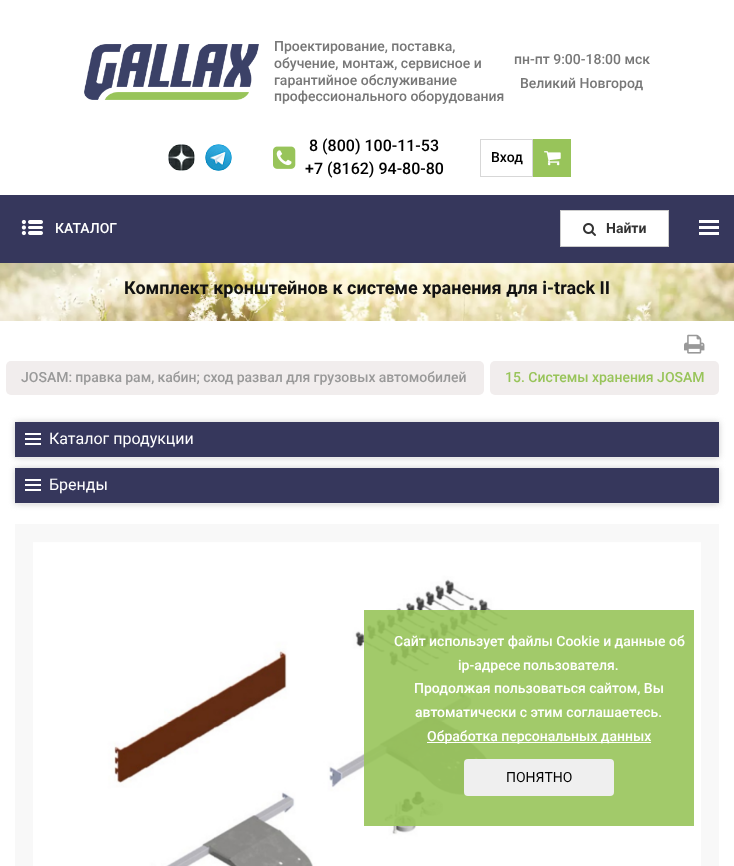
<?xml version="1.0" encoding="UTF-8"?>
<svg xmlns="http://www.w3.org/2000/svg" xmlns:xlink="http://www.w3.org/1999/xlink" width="734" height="866">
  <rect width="100%" height="100%" fill="#ffffff" />
  <image x="84" y="44" width="175" height="56" xlink:href="image1.png" />
  <image x="168" y="144" width="27" height="27" xlink:href="image2.png" />
  <image x="205" y="144" width="27" height="27" xlink:href="image3.png" />
  <image x="273" y="146" width="23" height="23" xlink:href="image4.png" />
  <rect x="480.5" y="139.5" width="52" height="37" fill="none" stroke="#d7d7d7" />
  <rect x="533" y="139" width="38" height="38" fill="#98c45a" />
  <image x="544" y="151" width="17" height="15" xlink:href="image5.png" />
  <rect y="195" width="734" height="68" fill="#36375c" />
  <image x="21" y="219" width="22" height="17" xlink:href="image6.png" />
  <rect x="560.5" y="210.5" width="108" height="36" fill="#ffffff" stroke="#cccccc" />
  <image x="583" y="223" width="13" height="13" xlink:href="image7.png" />
  <rect x="699" y="220" width="20" height="3" fill="#ffffff" />
  <rect x="699" y="226" width="20" height="3" fill="#ffffff" />
  <rect x="699" y="232" width="20" height="3" fill="#ffffff" />
  <image x="0" y="263" width="734" height="58" xlink:href="image8.png" />
  <image x="684" y="334" width="21" height="20" xlink:href="image9.png" />
  <rect x="6" y="361" width="478" height="34" rx="5" fill="#f1eded" />
  <rect x="490" y="361" width="229" height="34" rx="5" fill="#f1eded" />
  <rect x="15" y="422" width="704" height="36" fill="#cccccc" filter="blur(3px)" />
  <rect x="15" y="422" width="704" height="35" fill="#36375c" />
  <rect x="15" y="457" width="704" height="1" fill="#eaeaea" />
  <image x="25" y="433" width="16" height="12" xlink:href="image10.png" />
  <rect x="15" y="468" width="704" height="36" fill="#cccccc" filter="blur(3px)" />
  <rect x="15" y="468" width="704" height="35" fill="#36375c" />
  <rect x="15" y="503" width="704" height="1" fill="#eaeaea" />
  <image x="25" y="479" width="16" height="12" xlink:href="image10.png" />
  <rect x="15" y="524" width="704" height="342" fill="#f8f8f8" />
  <image x="33" y="542" width="668" height="324" xlink:href="image11.png" />
  <rect x="364" y="610" width="330" height="216" fill="#98c45a" fill-opacity="0.9" />
  <rect x="427" y="742" width="224" height="1" fill="#ffffff" />
  <rect x="464" y="759" width="150" height="37" rx="4" fill="#efefef" />
  <text x="274" y="51" style="font-family: Roboto; font-size: 14px; font-weight: 500; fill: #777777">Проектирование, поставка,</text>
  <text x="274" y="68" style="font-family: Roboto; font-size: 14px; font-weight: 500; fill: #777777">обучение, монтаж, сервисное и</text>
  <text x="274" y="85" style="font-family: Roboto; font-size: 14px; font-weight: 500; fill: #777777">гарантийное обслуживание</text>
  <text x="274" y="101" style="font-family: Roboto; font-size: 14px; font-weight: 500; fill: #777777">профессионального оборудования</text>
  <text x="514" y="64" style="font-family: Roboto; font-size: 14px; font-weight: 500; fill: #777777">пн-пт 9:00-18:00 мск</text>
  <text x="520" y="88" style="font-family: Roboto; font-size: 14px; font-weight: 500; fill: #777777">Великий Новгород</text>
  <text x="309" y="151" style="font-family: Roboto; font-size: 16px; font-weight: 500; fill: #000000">8 (800) 100-11-53</text>
  <text x="305" y="174" style="font-family: Roboto; font-size: 16px; font-weight: 500; fill: #000000">+7 (8162) 94-80-80</text>
  <text x="491" y="162" style="font-family: Roboto; font-size: 14px; font-weight: 500; fill: #000000">Вход</text>
  <text x="55" y="233" style="font-family: Roboto; font-size: 14px; font-weight: 500; fill: #ffffff">КАТАЛОГ</text>
  <text x="606" y="233" style="font-family: Roboto; font-size: 14px; font-weight: bold; fill: #333333">Найти</text>
  <text x="124" y="294" style="font-family: Roboto; font-size: 18px; font-weight: bold; fill: #111111">Комплект кронштейнов к системе хранения для i-track II</text>
  <text x="21" y="382" word-spacing="-0.25" style="font-family: Roboto; font-size: 14px; font-weight: 500; fill: #999999">JOSAM: правка рам, кабин; сход развал для грузовых автомобилей</text>
  <text x="505" y="382" style="font-family: Roboto; font-size: 14px; font-weight: 500; fill: #98c45a">15. Системы хранения JOSAM</text>
  <text x="49" y="444" style="font-family: Roboto; font-size: 16px; fill: #ffffff">Каталог продукции</text>
  <text x="49" y="490" style="font-family: Roboto; font-size: 16px; fill: #ffffff">Бренды</text>
  <text x="394" y="646" style="font-family: Roboto; font-size: 14px; font-weight: 500; fill: #ffffff">Сайт использует файлы Cookie и данные об</text>
  <text x="458" y="670" word-spacing="-1" style="font-family: Roboto; font-size: 14px; font-weight: 500; fill: #ffffff">ip-адресе пользователя.</text>
  <text x="414" y="693" style="font-family: Roboto; font-size: 14px; font-weight: 500; fill: #ffffff">Продолжая пользоваться сайтом, Вы</text>
  <text x="415" y="717" style="font-family: Roboto; font-size: 14px; font-weight: 500; fill: #ffffff">автоматически с этим соглашаетесь.</text>
  <text x="427" y="741" style="font-family: Roboto; font-size: 14px; font-weight: 500; fill: #ffffff">Обработка персональных данных</text>
  <text x="506" y="782" style="font-family: Roboto; font-size: 14px; fill: #000000">ПОНЯТНО</text>
</svg>
